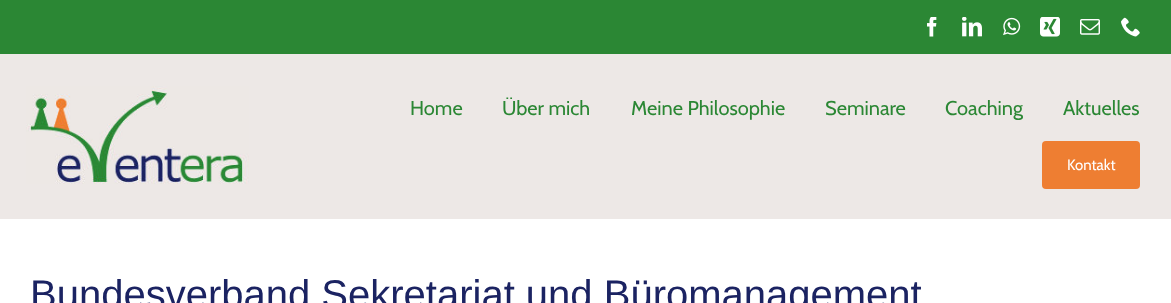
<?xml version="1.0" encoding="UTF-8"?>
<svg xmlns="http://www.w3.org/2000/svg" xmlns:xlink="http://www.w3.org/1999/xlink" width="1171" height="303">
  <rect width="100%" height="100%" fill="#ffffff" />
  <rect width="1171" height="54" fill="#2b8734" />
  <image x="927" y="17" width="10" height="20" xlink:href="image1.png" />
  <image x="962" y="17" width="20" height="20" xlink:href="image2.png" />
  <image x="1003" y="17" width="18" height="19" xlink:href="image3.png" />
  <image x="1040" y="17" width="20" height="20" xlink:href="image4.png" />
  <image x="1080" y="19" width="20" height="16" xlink:href="image5.png" />
  <image x="1121" y="17" width="19" height="20" xlink:href="image6.png" />
  <rect y="54" width="1171" height="165" fill="#ede8e6" />
  <image x="26" y="86" width="223" height="98" xlink:href="image7.png" />
  <rect x="1042" y="141" width="98" height="48" rx="4" fill="#ee7e32" />
  <text x="410" y="115" style="font-family: Cabin; font-size: 20px; fill: #2b8734">Home</text>
  <text x="502" y="115" style="font-family: Cabin; font-size: 20px; fill: #2b8734">Über mich</text>
  <text x="631" y="115" style="font-family: Cabin; font-size: 20px; fill: #2b8734">Meine Philosophie</text>
  <text x="825" y="115" style="font-family: Cabin; font-size: 20px; fill: #2b8734">Seminare</text>
  <text x="945" y="115" style="font-family: Cabin; font-size: 20px; fill: #2b8734">Coaching</text>
  <text x="1063" y="115" style="font-family: Cabin; font-size: 20px; fill: #2b8734">Aktuelles</text>
  <text x="1067" y="170" style="font-family: Cabin; font-size: 15px; fill: #ffffff">Kontakt</text>
  <text x="30" y="308" style="font-family: Liberation Sans; font-size: 40px; fill: #1b2362">Bundesverband Sekretariat und Büromanagement</text>
</svg>
